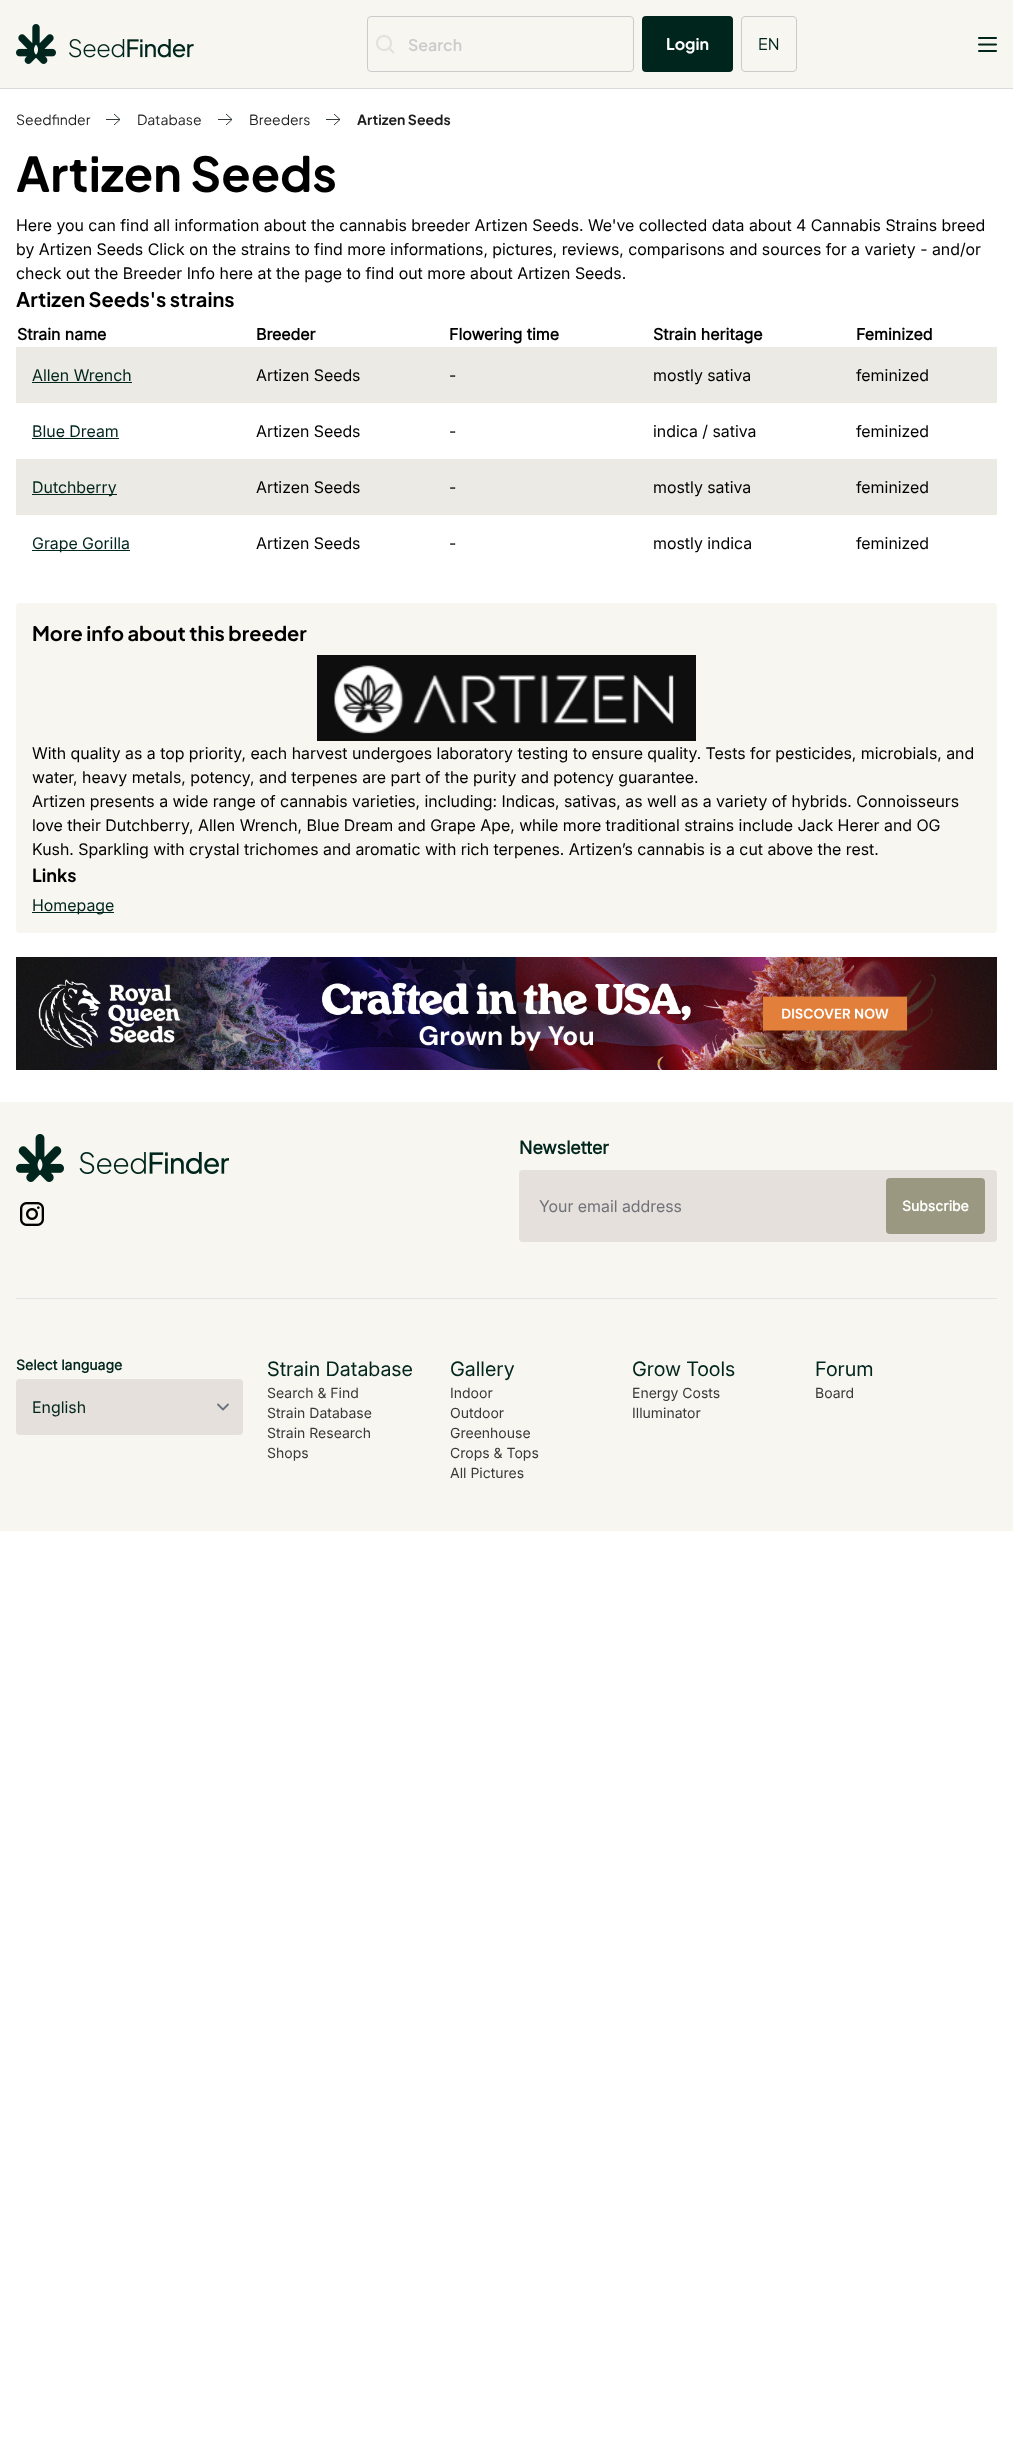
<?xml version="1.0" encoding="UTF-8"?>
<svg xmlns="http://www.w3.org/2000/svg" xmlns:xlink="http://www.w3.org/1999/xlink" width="1013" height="2461">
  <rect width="100%" height="100%" fill="#ffffff" />
  <rect width="1013" height="88" fill="#f7f6f1" />
  <rect y="88" width="1013" height="1" fill="#dadada" />
  <image x="16" y="24" width="178" height="40" xlink:href="image1.png" />
  <rect x="367.5" y="16.5" width="266" height="55" rx="3.5" fill="none" stroke="#cccbcb" />
  <image x="376" y="35" width="19" height="19" xlink:href="image2.png" />
  <rect x="642" y="16" width="91" height="56" rx="4" fill="#00251c" />
  <rect x="741.5" y="16.5" width="55" height="55" rx="3.5" fill="none" stroke="#cccbcb" />
  <image x="978" y="37" width="19" height="15" xlink:href="image3.png" />
  <path d="M 114 125 l 6 -5.5 m 0 0 l -6 -5.5 m 6 5.5 h -14" fill="none" stroke="#313935" />
  <path d="M 226 125 l 6 -5.5 m 0 0 l -6 -5.5 m 6 5.5 h -14" fill="none" stroke="#313935" />
  <path d="M 334 125 l 6 -5.5 m 0 0 l -6 -5.5 m 6 5.5 h -14" fill="none" stroke="#313935" />
  <rect x="16" y="347" width="981" height="56" fill="#ebeae4" />
  <rect x="32" y="382" width="100" height="1" fill="#00251c" />
  <rect x="32" y="438" width="87" height="1" fill="#00251c" />
  <rect x="16" y="459" width="981" height="56" fill="#ebeae4" />
  <rect x="32" y="494" width="85" height="1" fill="#00251c" />
  <rect x="32" y="550" width="98" height="1" fill="#00251c" />
  <rect x="16" y="603" width="981" height="330" rx="4" fill="#f7f6f1" />
  <image x="317" y="655" width="379" height="86" xlink:href="image4.png" />
  <rect x="32" y="912" width="82" height="1" fill="#00251c" />
  <image x="16" y="957" width="981" height="113" xlink:href="image5.png" />
  <rect y="1102" width="1013" height="429" fill="#f7f6f1" />
  <image x="16" y="1134" width="213" height="48" xlink:href="image6.png" />
  <image x="20" y="1202" width="24" height="24" xlink:href="image7.png" />
  <rect x="519" y="1170" width="478" height="72" rx="4" fill="#e5e0db" />
  <rect x="886" y="1178" width="99" height="56" rx="4" fill="#9a9881" />
  <rect x="16" y="1298" width="981" height="1" fill="#e4e4e7" />
  <rect x="16" y="1379" width="227" height="56" rx="4" fill="#e5e0db" />
  <path d="M 218 1404.5 l 5 5 l 5 -5" fill="none" stroke="#6b7280" stroke-width="1.8" stroke-linecap="round" stroke-linejoin="round" />
  <text x="408" y="51" style="font-family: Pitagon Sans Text; font-size: 16px; font-weight: 600; fill: #cccbcb">Search</text>
  <text x="666" y="50" style="font-family: Pitagon Sans Text; font-size: 16px; font-weight: bold; fill: #ffffff">Login</text>
  <text x="758" y="50" style="font-family: Pitagon Sans Text; font-size: 16px; fill: #00251c">EN</text>
  <text x="16" y="125" style="font-family: Pitagon Sans Text; font-size: 14px; fill: #1e1e1e">Seedfinder</text>
  <text x="137" y="125" style="font-family: Pitagon Sans Text; font-size: 14px; fill: #1e1e1e">Database</text>
  <text x="249" y="125" style="font-family: Pitagon Sans Text; font-size: 14px; fill: #1e1e1e">Breeders</text>
  <text x="357" y="125" style="font-family: Pitagon Sans Text; font-size: 14px; font-weight: bold; fill: #1e1e1e">Artizen Seeds</text>
  <text x="16" y="192" style="font-family: Pitagon Sans Text; font-size: 48px; font-weight: bold; fill: #000000">Artizen Seeds</text>
  <text x="16" y="231" style="font-family: Inter; font-size: 16px; fill: #000000">Here you can find all information about the cannabis breeder Artizen Seeds. We've collected data about 4 Cannabis Strains breed</text>
  <text x="16" y="255" style="font-family: Inter; font-size: 16px; fill: #000000">by Artizen Seeds Click on the strains to find more informations, pictures, reviews, comparisons and sources for a variety - and/or</text>
  <text x="16" y="279" style="font-family: Inter; font-size: 16px; fill: #000000">check out the Breeder Info here at the page to find out more about Artizen Seeds.</text>
  <text x="16" y="307" style="font-family: Pitagon Sans Text; font-size: 20px; font-weight: bold; fill: #000000">Artizen Seeds's strains</text>
  <text x="17" y="340" style="font-family: 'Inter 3'; font-size: 16px; font-weight: bold; fill: #000000">Strain name</text>
  <text x="256" y="340" style="font-family: 'Inter 3'; font-size: 16px; font-weight: bold; fill: #000000">Breeder</text>
  <text x="449" y="340" style="font-family: 'Inter 3'; font-size: 16px; font-weight: bold; fill: #000000">Flowering time</text>
  <text x="653" y="340" style="font-family: 'Inter 3'; font-size: 16px; font-weight: bold; fill: #000000">Strain heritage</text>
  <text x="856" y="340" style="font-family: 'Inter 3'; font-size: 16px; font-weight: bold; fill: #000000">Feminized</text>
  <text x="32" y="381" style="font-family: Inter; font-size: 16px; fill: #00251c">Allen Wrench</text>
  <text x="256" y="381" style="font-family: Inter; font-size: 16px; fill: #000000">Artizen Seeds</text>
  <text x="449" y="381" style="font-family: Inter; font-size: 16px; fill: #000000">-</text>
  <text x="653" y="381" style="font-family: Inter; font-size: 16px; fill: #000000">mostly sativa</text>
  <text x="856" y="381" style="font-family: Inter; font-size: 16px; fill: #000000">feminized</text>
  <text x="32" y="437" style="font-family: Inter; font-size: 16px; fill: #00251c">Blue Dream</text>
  <text x="256" y="437" style="font-family: Inter; font-size: 16px; fill: #000000">Artizen Seeds</text>
  <text x="449" y="437" style="font-family: Inter; font-size: 16px; fill: #000000">-</text>
  <text x="653" y="437" style="font-family: Inter; font-size: 16px; fill: #000000">indica / sativa</text>
  <text x="856" y="437" style="font-family: Inter; font-size: 16px; fill: #000000">feminized</text>
  <text x="32" y="493" style="font-family: Inter; font-size: 16px; fill: #00251c">Dutchberry</text>
  <text x="256" y="493" style="font-family: Inter; font-size: 16px; fill: #000000">Artizen Seeds</text>
  <text x="449" y="493" style="font-family: Inter; font-size: 16px; fill: #000000">-</text>
  <text x="653" y="493" style="font-family: Inter; font-size: 16px; fill: #000000">mostly sativa</text>
  <text x="856" y="493" style="font-family: Inter; font-size: 16px; fill: #000000">feminized</text>
  <text x="32" y="549" style="font-family: Inter; font-size: 16px; fill: #00251c">Grape Gorilla</text>
  <text x="256" y="549" style="font-family: Inter; font-size: 16px; fill: #000000">Artizen Seeds</text>
  <text x="449" y="549" style="font-family: Inter; font-size: 16px; fill: #000000">-</text>
  <text x="653" y="549" style="font-family: Inter; font-size: 16px; fill: #000000">mostly indica</text>
  <text x="856" y="549" style="font-family: Inter; font-size: 16px; fill: #000000">feminized</text>
  <text x="32" y="641" style="font-family: Pitagon Sans Text; font-size: 20px; font-weight: bold; fill: #000000">More info about this breeder</text>
  <text x="32" y="759" style="font-family: Inter; font-size: 16px; fill: #000000">With quality as a top priority, each harvest undergoes laboratory testing to ensure quality. Tests for pesticides, microbials, and</text>
  <text x="32" y="783" style="font-family: Inter; font-size: 16px; fill: #000000">water, heavy metals, potency, and terpenes are part of the purity and potency guarantee.</text>
  <text x="32" y="807" style="font-family: Inter; font-size: 16px; fill: #000000">Artizen presents a wide range of cannabis varieties, including: Indicas, sativas, as well as a variety of hybrids. Connoisseurs</text>
  <text x="32" y="831" style="font-family: Inter; font-size: 16px; fill: #000000">love their Dutchberry, Allen Wrench, Blue Dream and Grape Ape, while more traditional strains include Jack Herer and OG</text>
  <text x="32" y="855" style="font-family: Inter; font-size: 16px; fill: #000000">Kush. Sparkling with crystal trichomes and aromatic with rich terpenes. Artizen’s cannabis is a cut above the rest.</text>
  <text x="32" y="882" style="font-family: Pitagon Sans Text; font-size: 18px; font-weight: bold; fill: #000000">Links</text>
  <text x="32" y="911" style="font-family: Inter; font-size: 16px; fill: #00251c">Homepage</text>
  <text x="519" y="1154" style="font-family: Inter; font-size: 18px; font-weight: bold; fill: #00251c">Newsletter</text>
  <text x="539" y="1212" style="font-family: Inter; font-size: 16px; fill: #71717a">Your email address</text>
  <text x="902" y="1211" style="font-family: 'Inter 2'; font-size: 14px; font-weight: bold; fill: #ffffff">Subscribe</text>
  <text x="16" y="1370" style="font-family: 'Inter 2'; font-size: 14px; font-weight: bold; fill: #00251c">Select language</text>
  <text x="32" y="1413" style="font-family: Inter; font-size: 16px; fill: #00251c">English</text>
  <text x="267" y="1376" style="font-family: 'Inter 2'; font-size: 20px; fill: #00251c">Strain Database</text>
  <text x="267" y="1398" style="font-family: 'Inter 3'; font-size: 14px; fill: #393939">Search &amp; Find</text>
  <text x="267" y="1418" style="font-family: 'Inter 3'; font-size: 14px; fill: #393939">Strain Database</text>
  <text x="267" y="1438" style="font-family: 'Inter 3'; font-size: 14px; fill: #393939">Strain Research</text>
  <text x="267" y="1458" style="font-family: 'Inter 3'; font-size: 14px; fill: #393939">Shops</text>
  <text x="450" y="1376" style="font-family: 'Inter 2'; font-size: 20px; fill: #00251c">Gallery</text>
  <text x="450" y="1398" style="font-family: 'Inter 3'; font-size: 14px; fill: #393939">Indoor</text>
  <text x="450" y="1418" style="font-family: 'Inter 3'; font-size: 14px; fill: #393939">Outdoor</text>
  <text x="450" y="1438" style="font-family: 'Inter 3'; font-size: 14px; fill: #393939">Greenhouse</text>
  <text x="450" y="1458" style="font-family: 'Inter 3'; font-size: 14px; fill: #393939">Crops &amp; Tops</text>
  <text x="450" y="1478" style="font-family: 'Inter 3'; font-size: 14px; fill: #393939">All Pictures</text>
  <text x="632" y="1376" style="font-family: 'Inter 2'; font-size: 20px; fill: #00251c">Grow Tools</text>
  <text x="632" y="1398" style="font-family: 'Inter 3'; font-size: 14px; fill: #393939">Energy Costs</text>
  <text x="632" y="1418" style="font-family: 'Inter 3'; font-size: 14px; fill: #393939">Illuminator</text>
  <text x="815" y="1376" style="font-family: 'Inter 2'; font-size: 20px; fill: #00251c">Forum</text>
  <text x="815" y="1398" style="font-family: 'Inter 3'; font-size: 14px; fill: #393939">Board</text>
</svg>
